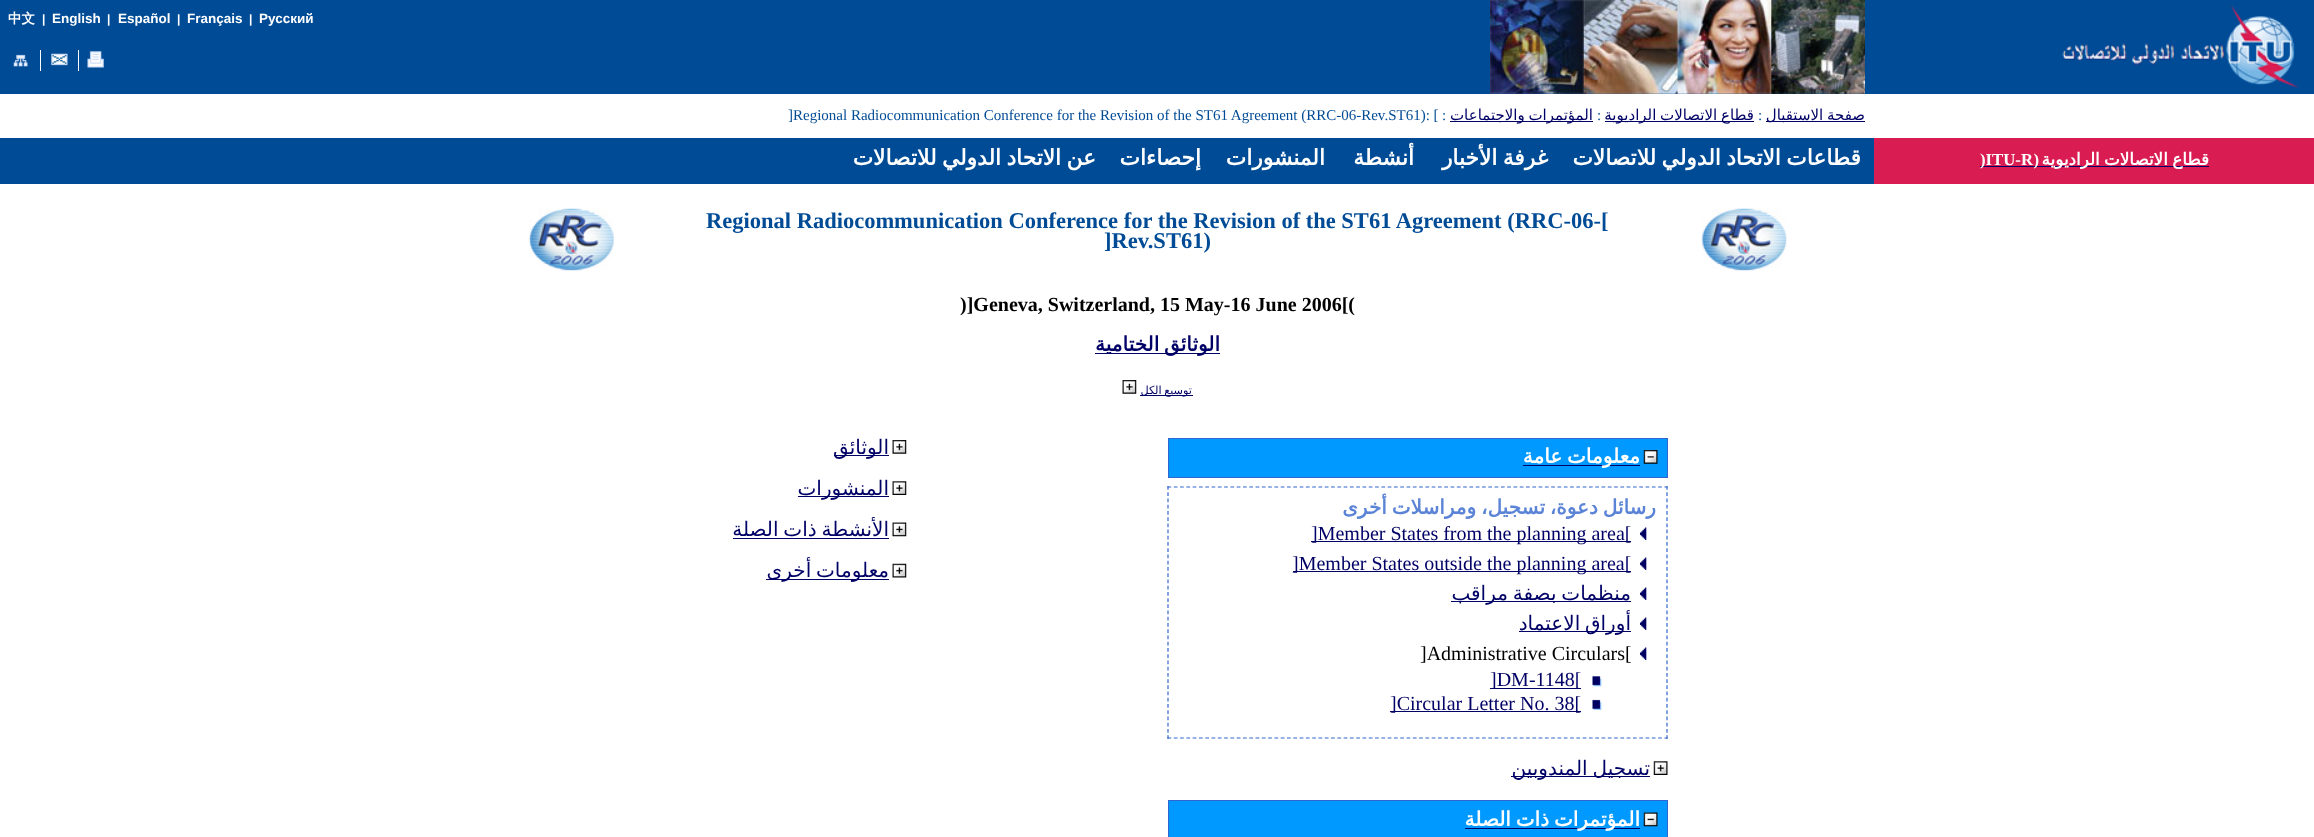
<?xml version="1.0" encoding="UTF-8"?>
<svg xmlns="http://www.w3.org/2000/svg" xmlns:xlink="http://www.w3.org/1999/xlink" width="2314" height="837">
  <rect width="100%" height="100%" fill="#ffffff" />
  <rect width="2314" height="94" fill="#004b96" />
  <rect x="40" y="50" width="1" height="21" fill="#ffffff" />
  <image x="13" y="54" width="15" height="13" xlink:href="image1.png" />
  <rect x="78" y="50" width="1" height="21" fill="#ffffff" />
  <image x="51" y="53" width="17" height="13" xlink:href="image2.png" />
  <image x="87" y="51" width="17" height="17" xlink:href="image3.png" />
  <image x="1490" y="0" width="375" height="94" xlink:href="image4.png" />
  <image x="2062" y="5" width="237" height="83" xlink:href="image5.png" />
  <rect x="1450" y="121" width="143" height="1" fill="#000066" />
  <rect x="1605" y="121" width="149" height="1" fill="#000066" />
  <rect x="1766" y="121" width="99" height="1" fill="#000066" />
  <rect y="138" width="1874" height="46" fill="#004b96" />
  <rect x="1874" y="138" width="440" height="46" fill="#d91d52" />
  <rect x="1980" y="166" width="229" height="1" fill="#000066" />
  <image x="528" y="208" width="86" height="63" xlink:href="image6.png" />
  <image x="1701" y="208" width="86" height="63" xlink:href="image7.png" />
  <rect x="1095" y="353" width="125" height="1" fill="#000066" />
  <image x="1122" y="380" width="15" height="14" xlink:href="image8.png" />
  <rect x="1140" y="395" width="53" height="1" fill="#000066" />
  <rect x="834" y="455" width="55" height="1" fill="#000066" />
  <image x="892" y="440" width="15" height="14" xlink:href="image9.png" />
  <rect x="798" y="496" width="91" height="1" fill="#000066" />
  <image x="892" y="481" width="15" height="14" xlink:href="image10.png" />
  <rect x="733" y="538" width="156" height="1" fill="#000066" />
  <image x="892" y="522" width="15" height="15" xlink:href="image11.png" />
  <rect x="766" y="579" width="123" height="1" fill="#000066" />
  <image x="892" y="563" width="15" height="15" xlink:href="image12.png" />
  <rect x="1168.5" y="438.5" width="499" height="39" fill="#0099ff" stroke="#3366cc" />
  <rect x="1523" y="465" width="117" height="1" fill="#000066" />
  <image x="1643" y="450" width="15" height="14" xlink:href="image13.png" />
  <path d="M 1167.5 487 h 500" fill="none" stroke="#3366cc" stroke-width="1.2" stroke-dasharray="3.75 2.54" />
  <path d="M 1667 486 v 253" fill="none" stroke="#3366cc" stroke-width="1.2" stroke-dasharray="3.75 2.48" />
  <path d="M 1167.5 738 h 500" fill="none" stroke="#3366cc" stroke-width="1.2" stroke-dasharray="3.75 2.54" />
  <path d="M 1168 486 v 253" fill="none" stroke="#3366cc" stroke-width="1.2" stroke-dasharray="3.75 2.48" />
  <image x="1640" y="527" width="7" height="13" xlink:href="image14.png" />
  <rect x="1311" y="541" width="320" height="1" fill="#000066" />
  <image x="1640" y="557" width="7" height="13" xlink:href="image14.png" />
  <rect x="1293" y="571" width="338" height="1" fill="#000066" />
  <image x="1640" y="587" width="7" height="13" xlink:href="image15.png" />
  <rect x="1451" y="601" width="180" height="1" fill="#000066" />
  <image x="1640" y="617" width="7" height="13" xlink:href="image14.png" />
  <rect x="1519" y="631" width="112" height="1" fill="#000066" />
  <image x="1640" y="647" width="7" height="13" xlink:href="image14.png" />
  <image x="1592" y="676" width="10" height="11" xlink:href="image16.png" />
  <rect x="1490" y="688" width="91" height="1" fill="#000066" />
  <image x="1592" y="699" width="10" height="11" xlink:href="image17.png" />
  <rect x="1390" y="711" width="191" height="1" fill="#000066" />
  <rect x="1511" y="776" width="139" height="1" fill="#000066" />
  <image x="1653" y="761" width="15" height="14" xlink:href="image18.png" />
  <rect x="1168.5" y="800.5" width="499" height="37" fill="#0099ff" stroke="#3366cc" />
  <rect x="1465" y="828" width="175" height="1" fill="#000066" />
  <image x="1643" y="812" width="15" height="15" xlink:href="image19.png" />
  <text x="8" y="23" style="font-family: WenQuanYi Zen Hei; font-size: 13.5px; font-weight: bold; fill: #ffffff">中文</text>
  <text x="42" y="23" style="font-family: Liberation Sans; font-size: 12px; font-weight: bold; fill: #ffffff">|</text>
  <text x="52" y="23" style="font-family: Liberation Sans; font-size: 13.5px; font-weight: bold; fill: #ffffff">English</text>
  <text x="107" y="23" style="font-family: Liberation Sans; font-size: 12px; font-weight: bold; fill: #ffffff">|</text>
  <text x="118" y="23" style="font-family: Liberation Sans; font-size: 13.5px; font-weight: bold; fill: #ffffff">Español</text>
  <text x="177" y="23" style="font-family: Liberation Sans; font-size: 12px; font-weight: bold; fill: #ffffff">|</text>
  <text x="187" y="23" style="font-family: Liberation Sans; font-size: 13.5px; font-weight: bold; fill: #ffffff">Français</text>
  <text x="249" y="23" style="font-family: Liberation Sans; font-size: 12px; font-weight: bold; fill: #ffffff">|</text>
  <text x="259" y="23" style="font-family: Liberation Sans; font-size: 13.5px; font-weight: bold; fill: #ffffff">Русский</text>
  <text x="788" y="120" style="font-family: Liberation Serif; font-size: 15px; fill: #004b96">]Regional Radiocommunication Conference for the Revision of the ST61 Agreement (RRC-06-Rev.ST61): [</text>
  <text x="1442" y="120" style="font-family: Liberation Serif; font-size: 15px; fill: #004b96">:</text>
  <text x="1593" y="120" word-spacing="-1" style="font-family: DejaVu Sans; font-size: 15px; direction: rtl; fill: #000066">المؤتمرات والاجتماعات</text>
  <text x="1597" y="120" style="font-family: Liberation Serif; font-size: 15px; fill: #004b96">:</text>
  <text x="1754" y="120" word-spacing="-1" style="font-family: DejaVu Sans; font-size: 15px; direction: rtl; fill: #000066">قطاع الاتصالات الراديوية</text>
  <text x="1758" y="120" style="font-family: Liberation Serif; font-size: 15px; fill: #004b96">:</text>
  <text x="1865" y="120" word-spacing="-1" style="font-family: DejaVu Sans; font-size: 15px; direction: rtl; fill: #000066">صفحة الاستقبال</text>
  <text x="1980" y="165" style="font-family: Liberation Serif; font-size: 16.75px; font-weight: bold; fill: #ffffff">)ITU-R</text>
  <text x="2039" y="165" style="font-family: Liberation Serif; font-size: 16.75px; font-weight: bold; direction: rtl; fill: #ffffff">(</text>
  <text x="2209" y="165" word-spacing="-1" style="font-family: DejaVu Sans; font-size: 16.75px; font-weight: bold; direction: rtl; fill: #ffffff">قطاع الاتصالات الراديوية</text>
  <text x="706" y="228" style="font-family: Liberation Serif; font-size: 22.5px; font-weight: bold; fill: #004b96">Regional Radiocommunication Conference for the Revision of the ST61 Agreement (RRC-06-[</text>
  <text x="1104" y="248" style="font-family: Liberation Serif; font-size: 22.5px; font-weight: bold; fill: #004b96">]Rev.ST61)</text>
  <text x="960" y="311" style="font-family: Liberation Serif; font-size: 20px; font-weight: bold; fill: #000000">)]Geneva, Switzerland, 15 May-16 June 2006[(</text>
  <text x="1220" y="351" word-spacing="-1.5" style="font-family: DejaVu Sans; font-size: 20px; font-weight: bold; direction: rtl; fill: #000066">الوثائق الختامية</text>
  <text x="1192" y="394" word-spacing="-1" style="font-family: DejaVu Sans; font-size: 11.25px; direction: rtl; fill: #000066">توسيع الكل</text>
  <text x="889" y="454" style="font-family: DejaVu Sans; font-size: 20px; direction: rtl; fill: #000066">الوثائق</text>
  <text x="889" y="495" style="font-family: DejaVu Sans; font-size: 20px; direction: rtl; fill: #000066">المنشورات</text>
  <text x="889" y="536" word-spacing="-1.5" style="font-family: DejaVu Sans; font-size: 20px; direction: rtl; fill: #000066">الأنشطة ذات الصلة</text>
  <text x="889" y="577" word-spacing="-1.5" style="font-family: DejaVu Sans; font-size: 20px; direction: rtl; fill: #000066">معلومات أخرى</text>
  <text x="1640" y="463" word-spacing="-1.5" style="font-family: DejaVu Sans; font-size: 20px; font-weight: bold; direction: rtl; fill: #ffffff">معلومات عامة</text>
  <text x="1656" y="514" word-spacing="-1.5" style="font-family: DejaVu Sans; font-size: 20px; font-weight: bold; direction: rtl; fill: #5b84d7">رسائل دعوة، تسجيل، ومراسلات أخرى</text>
  <text x="1311" y="540" style="font-family: Liberation Serif; font-size: 20px; fill: #000066">]Member States from the planning area[</text>
  <text x="1292" y="570" style="font-family: Liberation Serif; font-size: 20px; fill: #000066">]Member States outside the planning area[</text>
  <text x="1631" y="600" word-spacing="-1.5" style="font-family: DejaVu Sans; font-size: 20px; direction: rtl; fill: #000066">منظمات بصفة مراقب</text>
  <text x="1631" y="630" word-spacing="-1.5" style="font-family: DejaVu Sans; font-size: 20px; direction: rtl; fill: #000066">أوراق الاعتماد</text>
  <text x="1420" y="660" style="font-family: Liberation Serif; font-size: 20px; fill: #000000">]Administrative Circulars[</text>
  <text x="1490" y="686" style="font-family: Liberation Serif; font-size: 20px; fill: #000066">]DM-1148[</text>
  <text x="1390" y="710" style="font-family: Liberation Serif; font-size: 20px; fill: #000066">]Circular Letter No. 38[</text>
  <text x="1650" y="775" word-spacing="-1.5" style="font-family: DejaVu Sans; font-size: 20px; direction: rtl; fill: #000066">تسجيل المندوبين</text>
  <text x="1640" y="826" word-spacing="-1.5" style="font-family: DejaVu Sans; font-size: 20px; font-weight: bold; direction: rtl; fill: #ffffff">المؤتمرات ذات الصلة</text>
  <text x="1096" y="165" word-spacing="-1.5" style="font-family: DejaVu Sans; font-size: 21.7px; font-weight: bold; direction: rtl; fill: #ffffff">عن الاتحاد الدولي للاتصالات</text>
  <text x="1201" y="165" style="font-family: DejaVu Sans; font-size: 21.7px; font-weight: bold; direction: rtl; fill: #ffffff">إحصاءات</text>
  <text x="1325" y="165" style="font-family: DejaVu Sans; font-size: 21.7px; font-weight: bold; direction: rtl; fill: #ffffff">المنشورات</text>
  <text x="1414" y="165" style="font-family: DejaVu Sans; font-size: 21.7px; font-weight: bold; direction: rtl; fill: #ffffff">أنشطة</text>
  <text x="1548" y="165" word-spacing="-1.5" style="font-family: DejaVu Sans; font-size: 21.7px; font-weight: bold; direction: rtl; fill: #ffffff">غرفة الأخبار</text>
  <text x="1861" y="165" word-spacing="-1.5" style="font-family: DejaVu Sans; font-size: 21.7px; font-weight: bold; direction: rtl; fill: #ffffff">قطاعات الاتحاد الدولي للاتصالات</text>
</svg>
